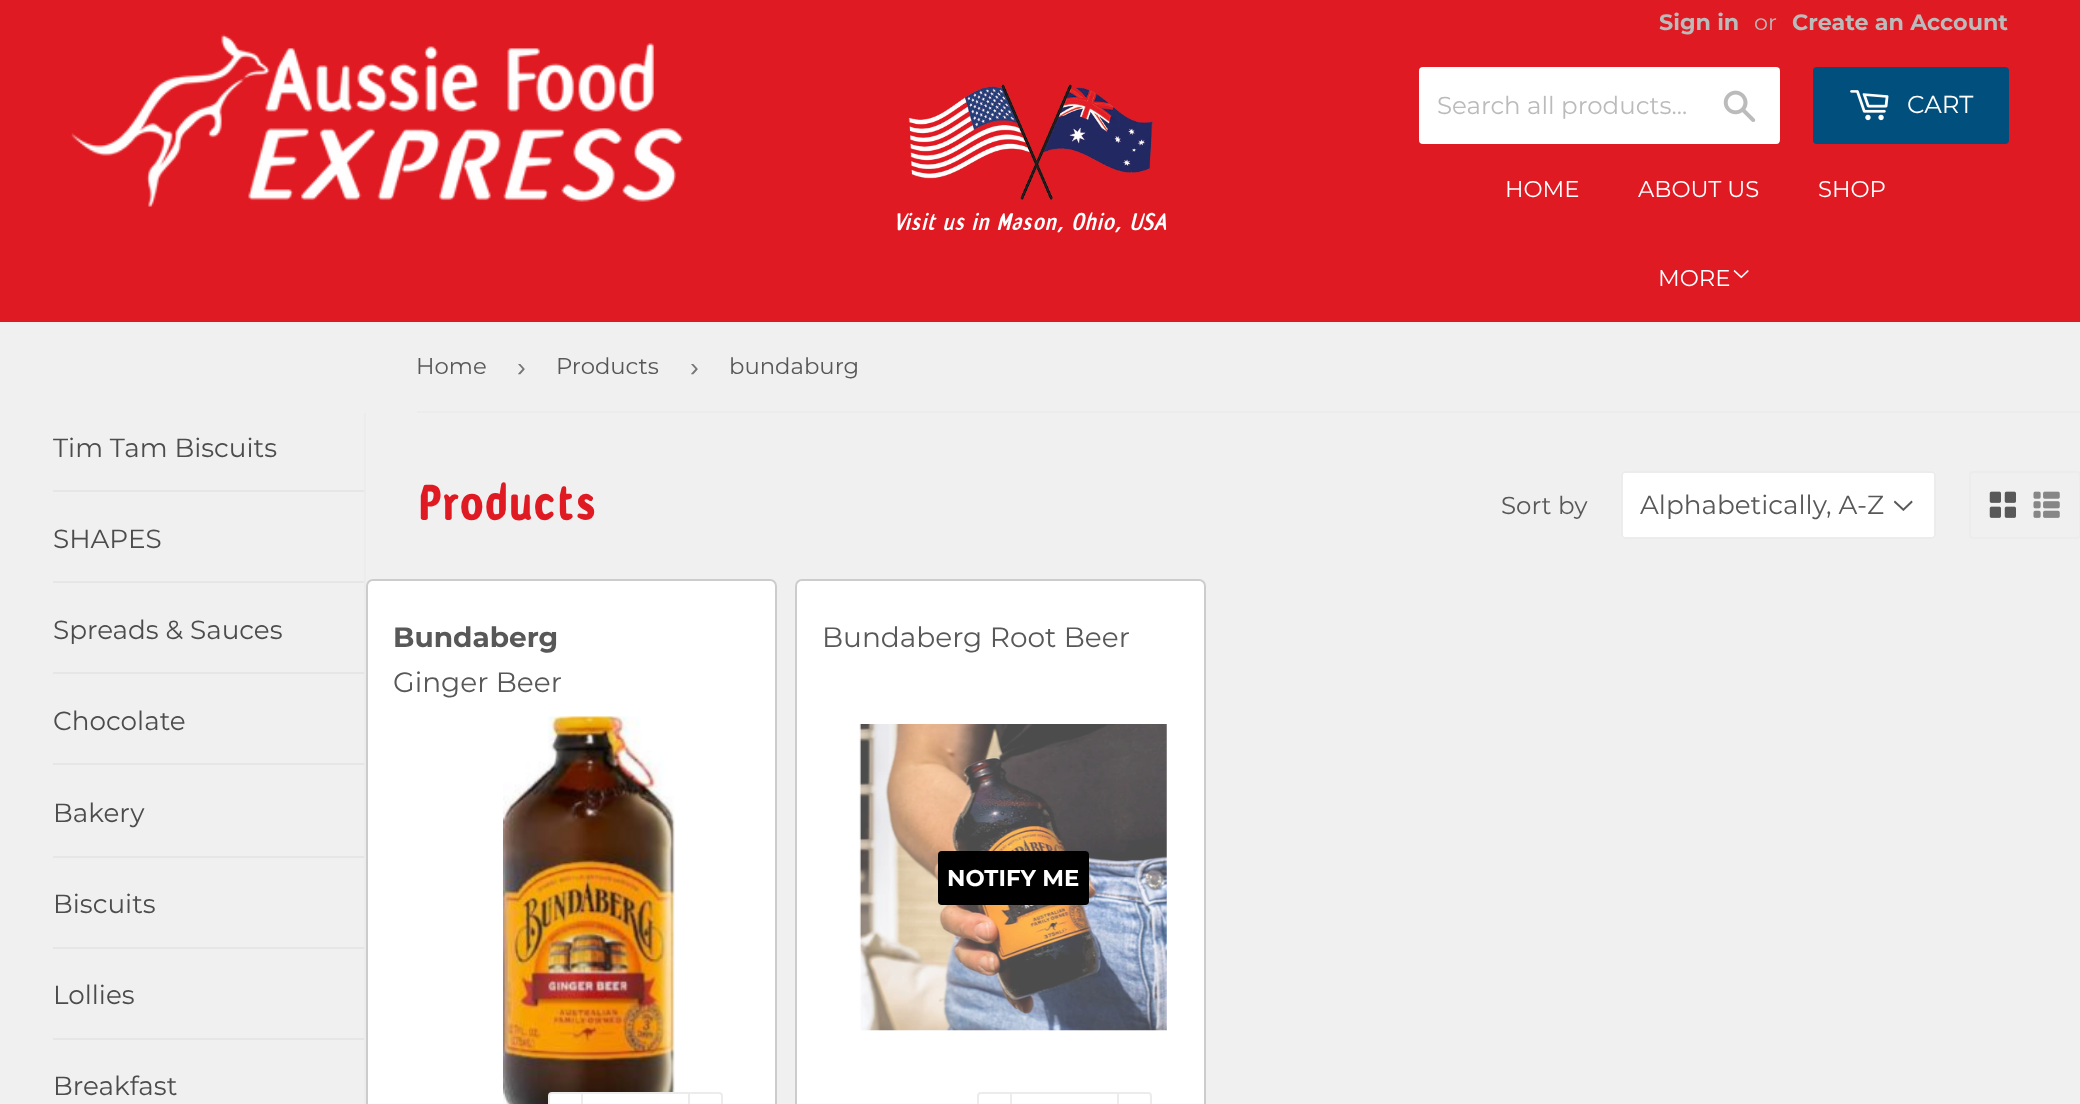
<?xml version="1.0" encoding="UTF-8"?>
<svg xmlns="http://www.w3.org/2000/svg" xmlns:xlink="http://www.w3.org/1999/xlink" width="2080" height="1104">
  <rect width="100%" height="100%" fill="#e01a22" />
  <image x="71" y="34" width="612" height="173" xlink:href="image1.png" />
  <rect x="1419" y="67" width="361" height="77" rx="4" fill="#ffffff" />
  <image x="1723" y="90" width="33" height="32" xlink:href="image2.png" />
  <rect x="1813" y="67" width="196" height="77" rx="4" fill="#014f7d" />
  <image x="1850" y="90" width="39" height="31" xlink:href="image3.png" />
  <image x="1733" y="270" width="16" height="9" xlink:href="image4.png" />
  <image x="908" y="84" width="245" height="116" xlink:href="image5.png" />
  <rect y="322" width="2080" height="782" fill="#f0f0f0" />
  <rect x="53" y="490" width="311" height="2" fill="#e6e6e6" />
  <rect x="53" y="581" width="311" height="2" fill="#e6e6e6" />
  <rect x="53" y="672" width="311" height="2" fill="#e6e6e6" />
  <rect x="53" y="763" width="311" height="2" fill="#e6e6e6" />
  <rect x="53" y="856" width="311" height="2" fill="#e6e6e6" />
  <rect x="53" y="947" width="311" height="2" fill="#e6e6e6" />
  <rect x="53" y="1038" width="311" height="2" fill="#e6e6e6" />
  <rect x="417" y="411" width="1663" height="2" fill="#ececec" />
  <rect x="364" y="413" width="2" height="691" fill="#ececec" />
  <rect x="1621" y="471" width="315" height="68" rx="4" fill="#ffffff" />
  <image x="1894" y="500" width="19" height="11" xlink:href="image6.png" />
  <rect x="1622" y="472" width="313" height="66" rx="3" fill="none" stroke="#ececec" stroke-width="2" />
  <rect x="1970" y="472" width="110" height="66" rx="3" fill="none" stroke="#ececec" stroke-width="2" />
  <image x="1989" y="491" width="27" height="27" xlink:href="image7.png" />
  <image x="2033" y="491" width="27" height="27" xlink:href="image8.png" />
  <rect x="367" y="580" width="409" height="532" rx="6" fill="#ffffff" stroke="#cccccc" stroke-width="2" />
  <image x="503" y="716" width="172" height="388" xlink:href="image9.png" />
  <rect x="549" y="1093" width="173" height="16" rx="3" fill="#ffffff" stroke="#ececec" stroke-width="2" />
  <rect x="581" y="1092" width="2" height="12" fill="#ececec" />
  <rect x="688" y="1092" width="2" height="12" fill="#ececec" />
  <rect x="796" y="580" width="409" height="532" rx="6" fill="#ffffff" stroke="#cccccc" stroke-width="2" />
  <image x="859" y="724" width="308" height="307" xlink:href="image10.png" />
  <rect x="938" y="851" width="151" height="54" rx="4" fill="#000000" />
  <rect x="978" y="1093" width="173" height="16" rx="3" fill="none" stroke="#ececec" stroke-width="2" />
  <rect x="1010" y="1092" width="2" height="12" fill="#ececec" />
  <rect x="1117" y="1092" width="2" height="12" fill="#ececec" />
  <text x="1659" y="30" style="font-family: 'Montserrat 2'; font-size: 22.25px; font-weight: 100; fill: #bbbbbb">Sign in</text>
  <text x="1754" y="30" style="font-family: Montserrat; font-size: 22.25px; font-weight: 100; fill: #bbbbbb">or</text>
  <text x="1792" y="30" style="font-family: 'Montserrat 2'; font-size: 22.25px; font-weight: 100; fill: #bbbbbb">Create an Account</text>
  <text x="1437" y="114" style="font-family: Montserrat; font-size: 24.5px; font-weight: 100; fill: #bbbbbb">Search all products...</text>
  <text x="1907" y="113" style="font-family: Montserrat; font-size: 24.5px; font-weight: 100; fill: #ffffff">CART</text>
  <text x="1505" y="197" style="font-family: Montserrat; font-size: 22.75px; font-weight: 100; fill: #ffffff">HOME</text>
  <text x="1638" y="197" style="font-family: Montserrat; font-size: 22.75px; font-weight: 100; fill: #ffffff">ABOUT US</text>
  <text x="1818" y="197" style="font-family: Montserrat; font-size: 22.75px; font-weight: 100; fill: #ffffff">SHOP</text>
  <text x="1658" y="286" style="font-family: Montserrat; font-size: 22.75px; font-weight: 100; fill: #ffffff">MORE</text>
  <text x="893" y="230" style="font-family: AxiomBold; font-size: 28px; font-style: italic; letter-spacing: 1.05px; fill: #ffffff">Visit us in Mason, Ohio, USA</text>
  <text x="53" y="457" style="font-family: Montserrat; font-size: 26.25px; font-weight: 100; fill: #4c4c4c">Tim Tam Biscuits</text>
  <text x="53" y="548" style="font-family: Montserrat; font-size: 26.25px; font-weight: 100; fill: #4c4c4c">SHAPES</text>
  <text x="53" y="639" style="font-family: Montserrat; font-size: 26.25px; font-weight: 100; fill: #4c4c4c">Spreads &amp; Sauces</text>
  <text x="53" y="730" style="font-family: Montserrat; font-size: 26.25px; font-weight: 100; fill: #4c4c4c">Chocolate</text>
  <text x="53" y="822" style="font-family: Montserrat; font-size: 26.25px; font-weight: 100; fill: #4c4c4c">Bakery</text>
  <text x="53" y="913" style="font-family: Montserrat; font-size: 26.25px; font-weight: 100; fill: #4c4c4c">Biscuits</text>
  <text x="53" y="1004" style="font-family: Montserrat; font-size: 26.25px; font-weight: 100; fill: #4c4c4c">Lollies</text>
  <text x="53" y="1095" style="font-family: Montserrat; font-size: 26.25px; font-weight: 100; fill: #4c4c4c">Breakfast</text>
  <text x="416" y="374" style="font-family: Montserrat; font-size: 22.75px; font-weight: 100; fill: #585858">Home</text>
  <text x="517" y="376" style="font-family: Liberation Sans; font-size: 26.25px; fill: #767676">›</text>
  <text x="556" y="374" style="font-family: Montserrat; font-size: 22.75px; font-weight: 100; fill: #585858">Products</text>
  <text x="690" y="376" style="font-family: Liberation Sans; font-size: 26.25px; fill: #767676">›</text>
  <text x="729" y="374" style="font-family: Montserrat; font-size: 22.75px; font-weight: 100; fill: #585858">bundaburg</text>
  <text x="418" y="520" style="font-family: AxiomBold; font-size: 56px; font-weight: bold; letter-spacing: 3.25px; fill: #e01a22">Products</text>
  <text x="1501" y="514" style="font-family: Montserrat; font-size: 24.5px; font-weight: 100; fill: #585858">Sort by</text>
  <text x="1640" y="514" style="font-family: Montserrat; font-size: 26.25px; font-weight: 100; fill: #585858">Alphabetically, A-Z</text>
  <text x="393" y="647" style="font-family: 'Montserrat 2'; font-size: 28px; font-weight: 100; fill: #585858">Bundaberg</text>
  <text x="393" y="692" style="font-family: Montserrat; font-size: 28px; font-weight: 100; fill: #585858">Ginger Beer</text>
  <text x="822" y="647" style="font-family: Montserrat; font-size: 28px; font-weight: 100; fill: #585858">Bundaberg Root Beer</text>
  <text x="947" y="886" style="font-family: 'Montserrat 2'; font-size: 22.75px; font-weight: 100; fill: #ffffff">NOTIFY ME</text>
</svg>
